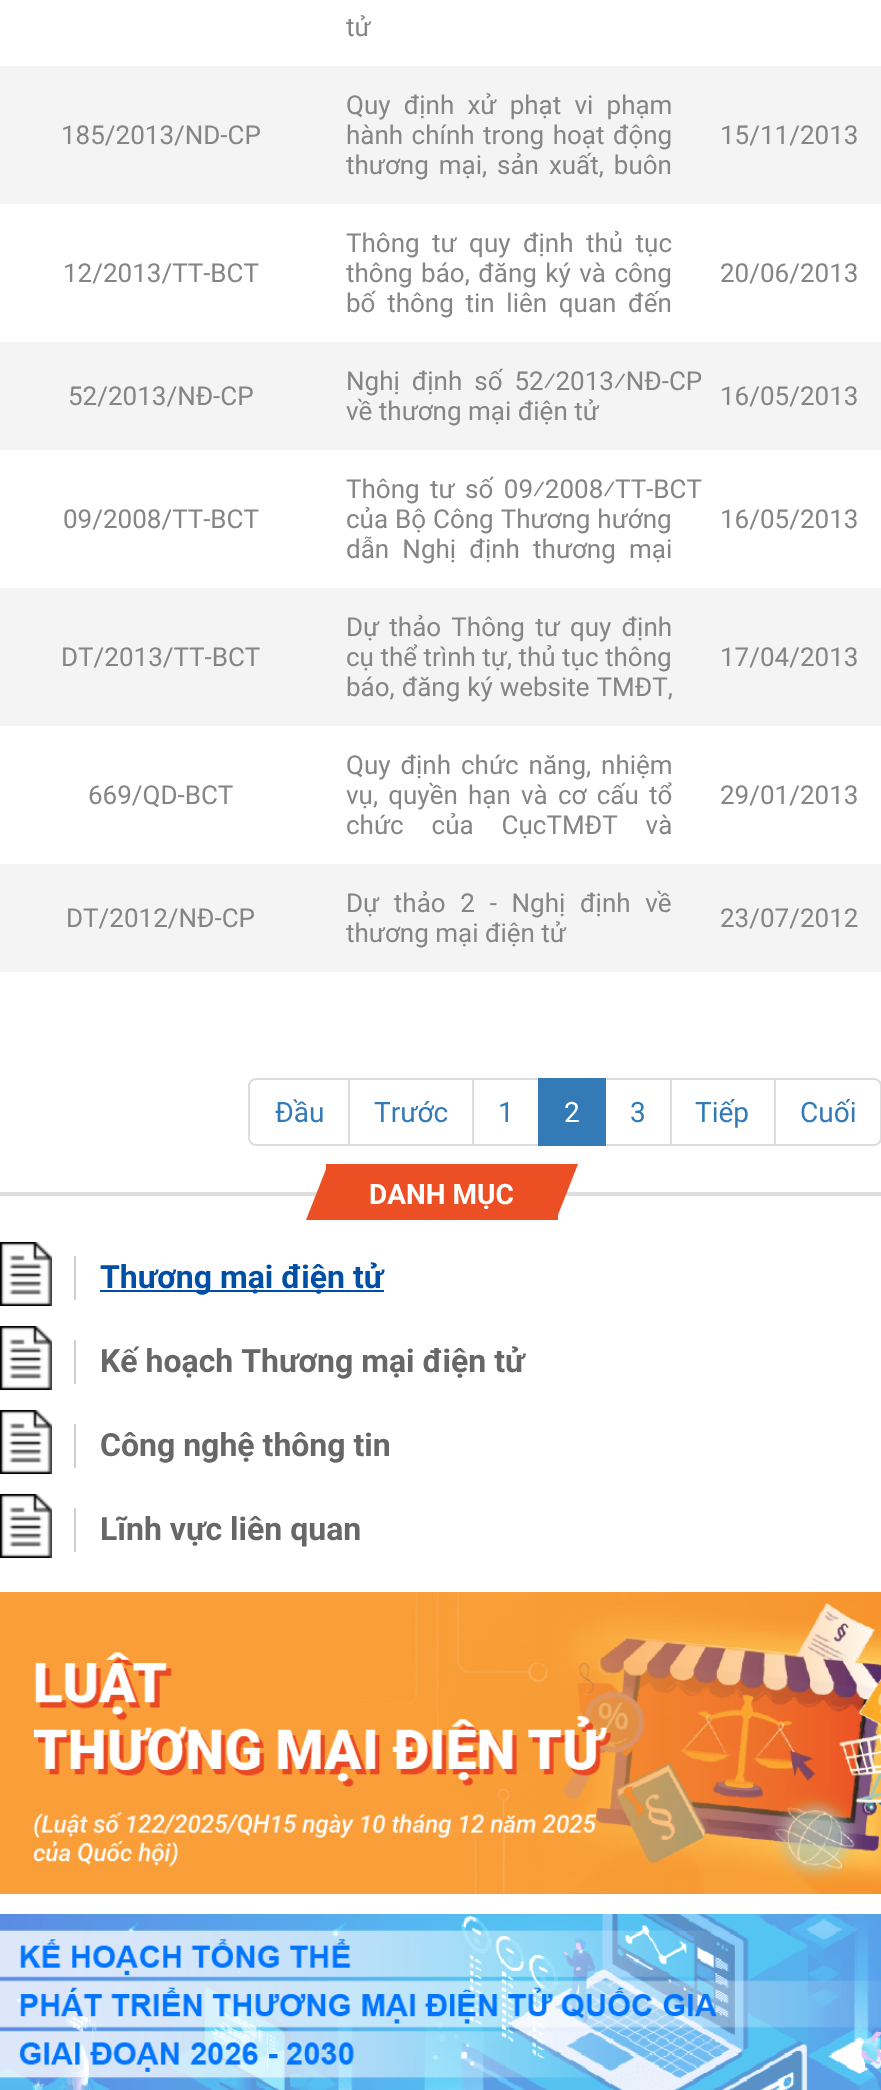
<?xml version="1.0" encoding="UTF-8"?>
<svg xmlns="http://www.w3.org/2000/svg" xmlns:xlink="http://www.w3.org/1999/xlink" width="881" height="2090">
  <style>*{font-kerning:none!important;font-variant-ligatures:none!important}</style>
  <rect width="100%" height="100%" fill="#ffffff" />
  <rect y="66" width="881" height="138" fill="#f4f4f4" />
  <rect y="342" width="881" height="108" fill="#f4f4f4" />
  <rect y="588" width="881" height="138" fill="#f4f4f4" />
  <rect y="864" width="881" height="108" fill="#f4f4f4" />
  <path d="M 256 1079 h 93 v 66 h -93 c -4 0 -7 -3 -7 -7 v -52 c 0 -4 3 -7 7 -7 z" fill="none" stroke="#dddddd" stroke-width="2" />
  <rect x="349" y="1079" width="124" height="66" fill="none" stroke="#dddddd" stroke-width="2" />
  <rect x="473" y="1079" width="66" height="66" fill="none" stroke="#dddddd" stroke-width="2" />
  <rect x="605" y="1079" width="66" height="66" fill="none" stroke="#dddddd" stroke-width="2" />
  <rect x="538" y="1078" width="68" height="68" fill="#337ab7" />
  <rect x="671" y="1079" width="104" height="66" fill="none" stroke="#dddddd" stroke-width="2" />
  <path d="M 775 1079 h 99 c 4 0 7 3 7 7 v 52 c 0 4 -3 7 -7 7 h -99 z" fill="#ffffff" stroke="#dddddd" stroke-width="2" />
  <rect y="1192" width="881" height="4" fill="#dedede" />
  <rect x="326" y="1164" width="232" height="56" fill="#ec4f23" />
  <path d="M 328 1220 h -22 l 22 -56 z" fill="#ec4f23" />
  <path d="M 556 1164 h 22 l -22 56 z" fill="#ec4f23" />
  <rect x="74" y="1256" width="2" height="44" fill="#d0d0d0" />
  <image x="0" y="1242" width="52" height="64" xlink:href="image1.png" />
  <rect x="100" y="1290" width="284" height="2" fill="#004fa7" />
  <rect x="74" y="1340" width="2" height="44" fill="#d0d0d0" />
  <image x="0" y="1326" width="52" height="64" xlink:href="image1.png" />
  <rect x="74" y="1424" width="2" height="44" fill="#d0d0d0" />
  <image x="0" y="1410" width="52" height="64" xlink:href="image1.png" />
  <rect x="74" y="1508" width="2" height="44" fill="#d0d0d0" />
  <image x="0" y="1494" width="52" height="64" xlink:href="image1.png" />
  <image x="0" y="1592" width="881" height="302" xlink:href="image2.png" />
  <image x="0" y="1914" width="881" height="176" xlink:href="image3.png" />
  <text x="346" y="36" style="font-family: Roboto; font-size: 26px; fill: #858585">tử</text>
  <text x="61" y="144" style="font-family: Roboto; font-size: 26px; fill: #858585">185/2013/ND-CP</text>
  <text x="346" y="114" word-spacing="6.75" style="font-family: Roboto; font-size: 26px; fill: #858585">Quy định xử phạt vi phạm</text>
  <text x="346" y="144" word-spacing="2" style="font-family: Roboto; font-size: 26px; fill: #858585">hành chính trong hoạt động</text>
  <text x="346" y="174" word-spacing="3.5" style="font-family: Roboto; font-size: 26px; fill: #858585">thương mại, sản xuất, buôn</text>
  <text x="720" y="144" style="font-family: Roboto; font-size: 26px; fill: #858585">15/11/2013</text>
  <text x="63" y="282" style="font-family: Roboto; font-size: 26px; fill: #858585">12/2013/TT-BCT</text>
  <text x="346" y="252" word-spacing="6" style="font-family: Roboto; font-size: 26px; fill: #858585">Thông tư quy định thủ tục</text>
  <text x="346" y="282" word-spacing="2" style="font-family: Roboto; font-size: 26px; fill: #858585">thông báo, đăng ký và công</text>
  <text x="346" y="312" word-spacing="5.25" style="font-family: Roboto; font-size: 26px; fill: #858585">bố thông tin liên quan đến</text>
  <text x="720" y="282" style="font-family: Roboto; font-size: 26px; fill: #858585">20/06/2013</text>
  <text x="68" y="405" style="font-family: Roboto; font-size: 26px; fill: #858585">52/2013/NĐ-CP</text>
  <text x="346" y="390" word-spacing="5.5" style="font-family: Roboto; font-size: 26px; fill: #858585">Nghị định số 52⁄2013⁄NĐ-CP</text>
  <text x="346" y="420" style="font-family: Roboto; font-size: 26px; fill: #858585">về thương mại điện tử</text>
  <text x="720" y="405" style="font-family: Roboto; font-size: 26px; fill: #858585">16/05/2013</text>
  <text x="63" y="528" style="font-family: Roboto; font-size: 26px; fill: #858585">09/2008/TT-BCT</text>
  <text x="346" y="498" word-spacing="4" style="font-family: Roboto; font-size: 26px; fill: #858585">Thông tư số 09⁄2008⁄TT-BCT</text>
  <text x="346" y="528" word-spacing="0.5" style="font-family: Roboto; font-size: 26px; fill: #858585">của Bộ Công Thương hướng</text>
  <text x="346" y="558" word-spacing="6.75" style="font-family: Roboto; font-size: 26px; fill: #858585">dẫn Nghị định thương mại</text>
  <text x="720" y="528" style="font-family: Roboto; font-size: 26px; fill: #858585">16/05/2013</text>
  <text x="61" y="666" style="font-family: Roboto; font-size: 26px; fill: #858585">DT/2013/TT-BCT</text>
  <text x="346" y="636" word-spacing="3.75" style="font-family: Roboto; font-size: 26px; fill: #858585">Dự thảo Thông tư quy định</text>
  <text x="346" y="666" style="font-family: Roboto; font-size: 26px; fill: #858585">cụ thể trình tự, thủ tục thông</text>
  <text x="346" y="696" word-spacing="0.5" style="font-family: Roboto; font-size: 26px; fill: #858585">báo, đăng ký website TMĐT,</text>
  <text x="720" y="666" style="font-family: Roboto; font-size: 26px; fill: #858585">17/04/2013</text>
  <text x="88" y="804" style="font-family: Roboto; font-size: 26px; fill: #858585">669/QD-BCT</text>
  <text x="346" y="774" word-spacing="3.5" style="font-family: Roboto; font-size: 26px; fill: #858585">Quy định chức năng, nhiệm</text>
  <text x="346" y="804" word-spacing="3.75" style="font-family: Roboto; font-size: 26px; fill: #858585">vụ, quyền hạn và cơ cấu tổ</text>
  <text x="346" y="834" word-spacing="21.5" style="font-family: Roboto; font-size: 26px; fill: #858585">chức của CụcTMĐT và</text>
  <text x="720" y="804" style="font-family: Roboto; font-size: 26px; fill: #858585">29/01/2013</text>
  <text x="66" y="927" style="font-family: Roboto; font-size: 26px; fill: #858585">DT/2012/NĐ-CP</text>
  <text x="346" y="912" word-spacing="8.25" style="font-family: Roboto; font-size: 26px; fill: #858585">Dự thảo 2 - Nghị định về</text>
  <text x="346" y="942" style="font-family: Roboto; font-size: 26px; fill: #858585">thương mại điện tử</text>
  <text x="720" y="927" style="font-family: Roboto; font-size: 26px; fill: #858585">23/07/2012</text>
  <text x="275" y="1122" style="font-family: Roboto; font-size: 28px; fill: #337ab7">Đầu</text>
  <text x="374" y="1122" style="font-family: Roboto; font-size: 28px; fill: #337ab7">Trước</text>
  <text x="498" y="1122" style="font-family: Roboto; font-size: 28px; fill: #337ab7">1</text>
  <text x="564" y="1122" style="font-family: Roboto; font-size: 28px; fill: #ffffff">2</text>
  <text x="630" y="1122" style="font-family: Roboto; font-size: 28px; fill: #337ab7">3</text>
  <text x="695" y="1122" style="font-family: Roboto; font-size: 28px; fill: #337ab7">Tiếp</text>
  <text x="800" y="1122" style="font-family: Roboto; font-size: 28px; fill: #337ab7">Cuối</text>
  <text x="369" y="1204" style="font-family: Roboto; font-size: 28px; font-weight: bold; fill: #ffffff">DANH MỤC</text>
  <text x="100" y="1288" style="font-family: Roboto; font-size: 32px; font-weight: bold; fill: #004fa7">Thương mại điện tử</text>
  <text x="100" y="1372" style="font-family: Roboto; font-size: 32px; font-weight: bold; fill: #676767">Kế hoạch Thương mại điện tử</text>
  <text x="100" y="1456" style="font-family: Roboto; font-size: 32px; font-weight: bold; fill: #676767">Công nghệ thông tin</text>
  <text x="100" y="1540" style="font-family: Roboto; font-size: 32px; font-weight: bold; fill: #676767">Lĩnh vực liên quan</text>
</svg>
